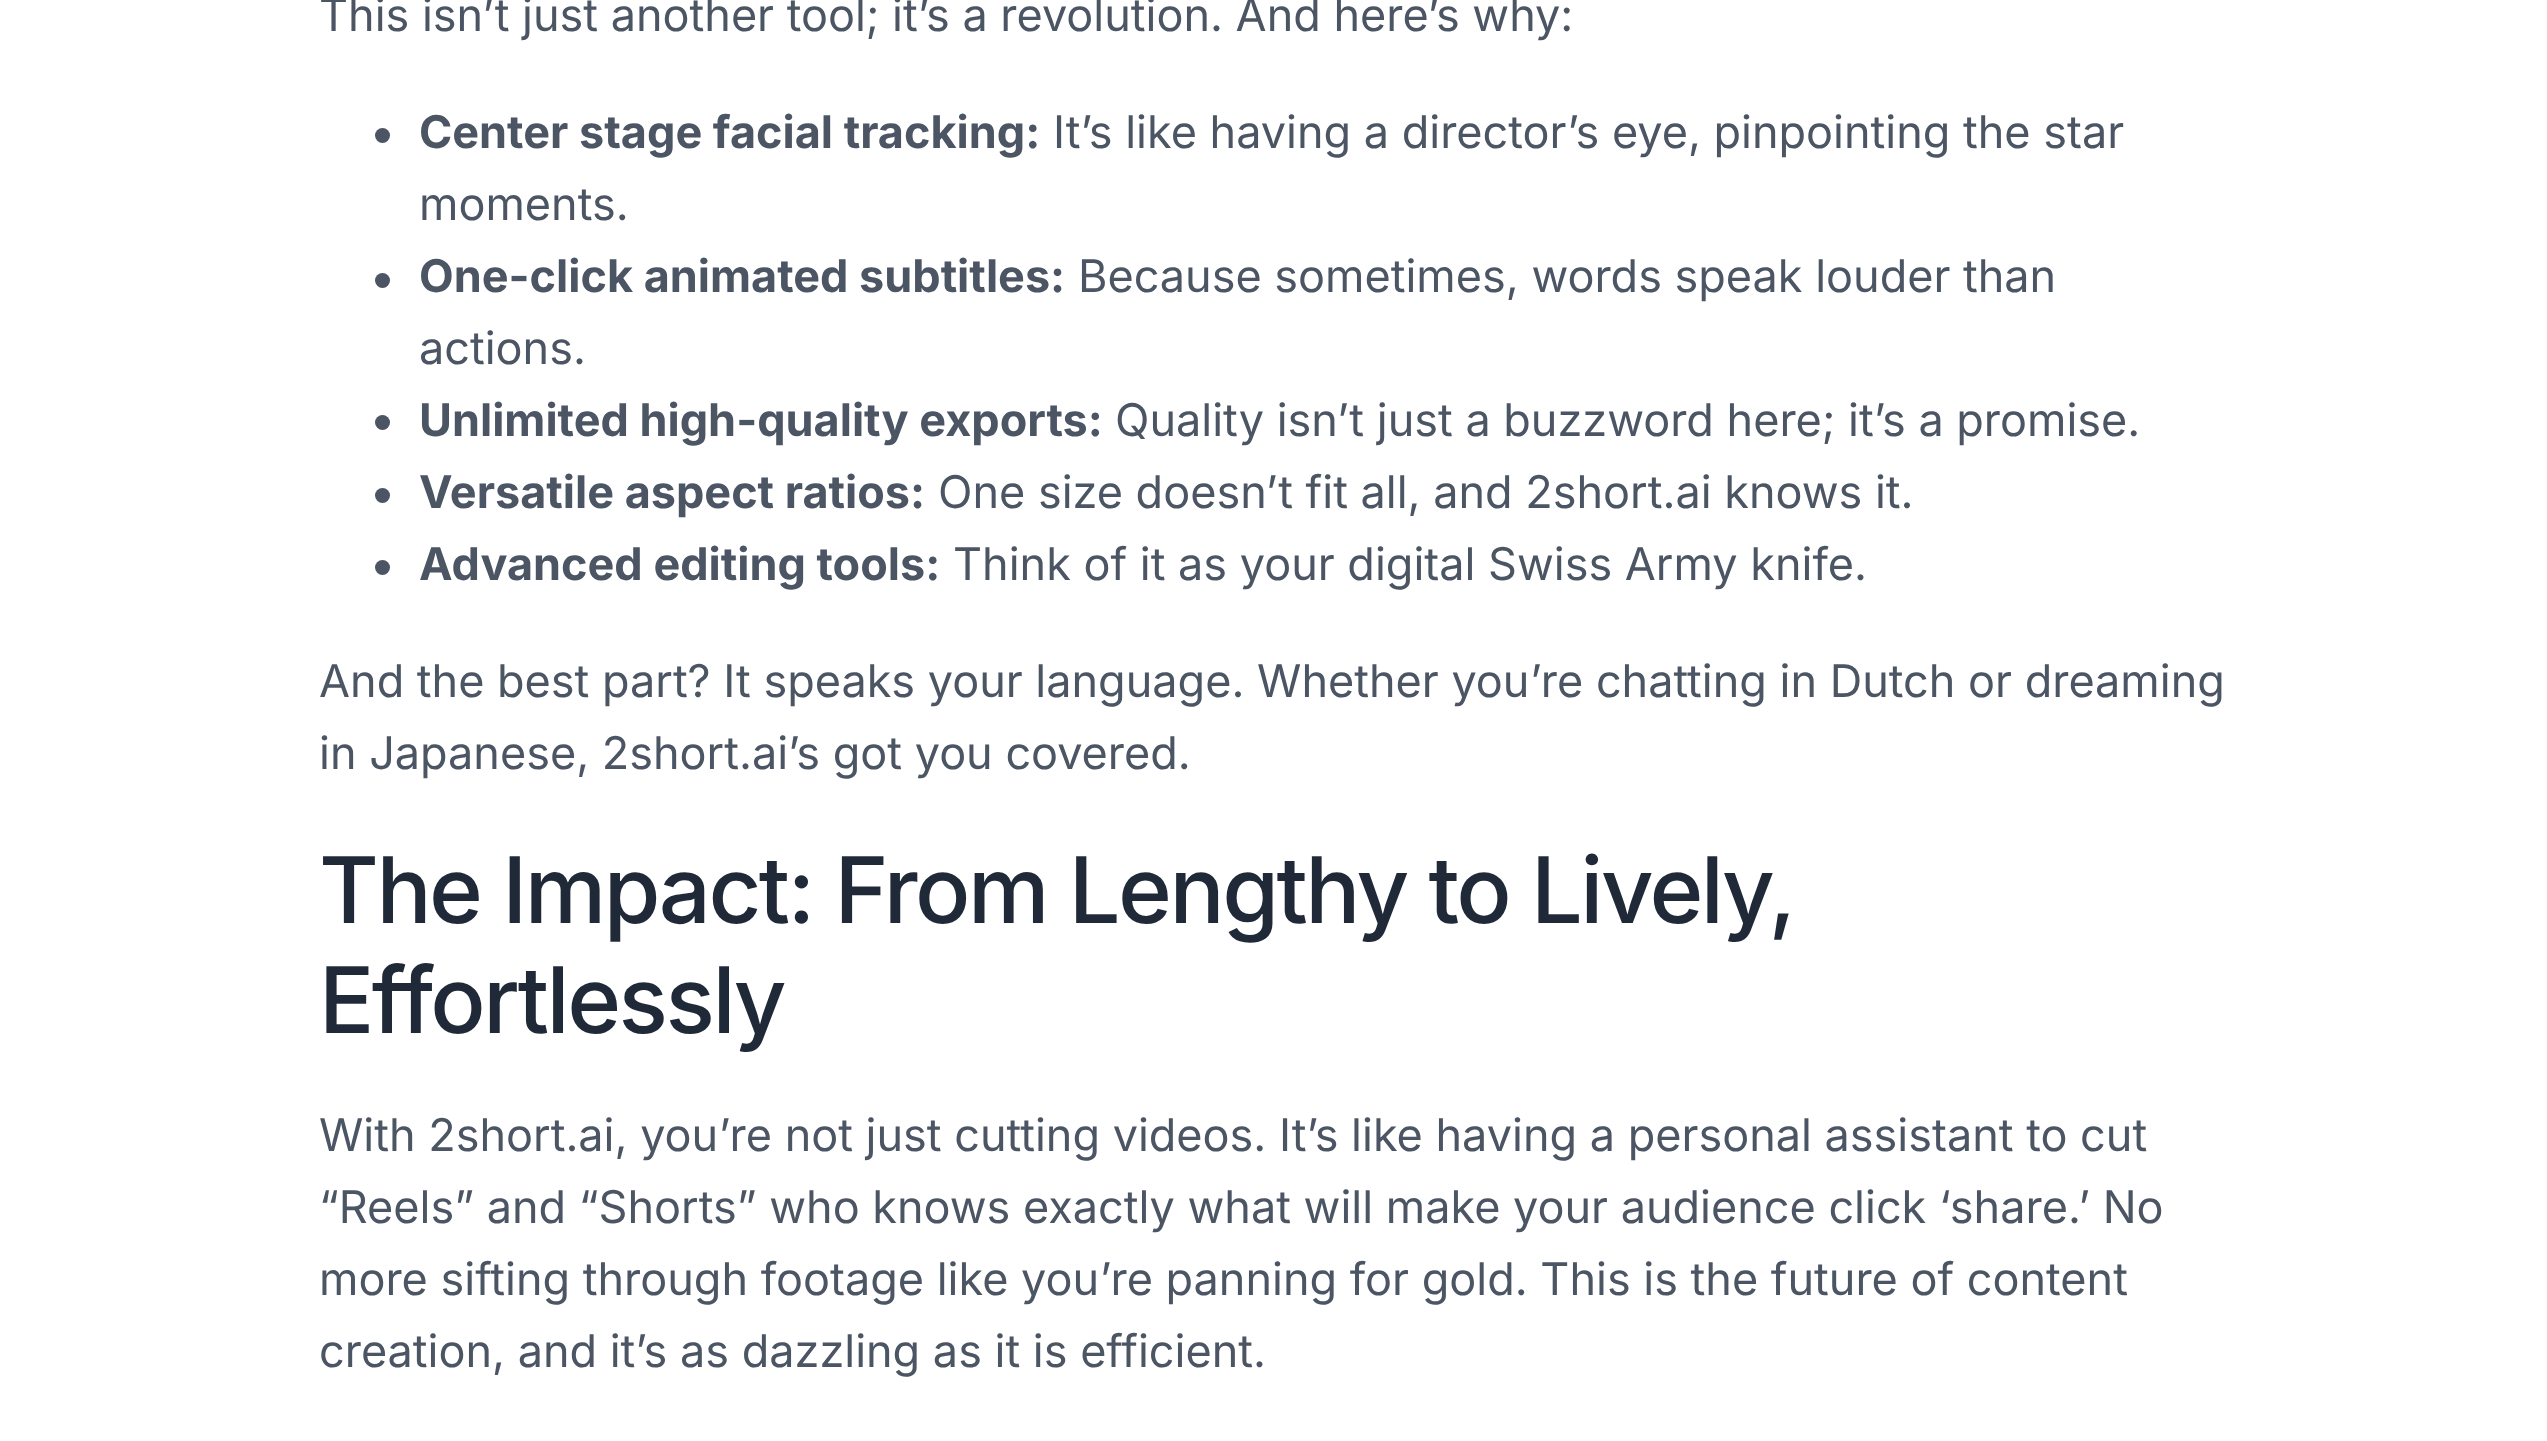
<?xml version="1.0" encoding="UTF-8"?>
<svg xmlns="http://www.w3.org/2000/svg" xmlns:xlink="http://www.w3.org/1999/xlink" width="2547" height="1441">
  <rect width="100%" height="100%" fill="#ffffff" />
  <circle cx="382.5" cy="135.5" r="7.5" fill="#4b5563" />
  <circle cx="382.5" cy="280.5" r="7.5" fill="#4b5563" />
  <circle cx="382.5" cy="422.5" r="7.5" fill="#4b5563" />
  <circle cx="382.5" cy="495.5" r="7.5" fill="#4b5563" />
  <circle cx="382.5" cy="567.5" r="7.5" fill="#4b5563" />
  <text x="319" y="31" style="font-family: Inter; font-size: 45px; fill: #4b5563">This isn’t just another tool; it’s a revolution. And here’s why:</text>
  <text x="419" y="148" style="font-family: Inter; font-size: 45px; font-weight: bold; fill: #4b5563">Center stage facial tracking:</text>
  <text x="1053" y="148" style="font-family: Inter; font-size: 45px; fill: #4b5563">It’s like having a director’s eye, pinpointing the star</text>
  <text x="419" y="220" style="font-family: Inter; font-size: 45px; fill: #4b5563">moments.</text>
  <text x="419" y="292" style="font-family: Inter; font-size: 45px; font-weight: bold; fill: #4b5563">One-click animated subtitles:</text>
  <text x="1078" y="292" style="font-family: Inter; font-size: 45px; fill: #4b5563">Because sometimes, words speak louder than</text>
  <text x="419" y="364" style="font-family: Inter; font-size: 45px; fill: #4b5563">actions.</text>
  <text x="419" y="436" style="font-family: Inter; font-size: 45px; font-weight: bold; fill: #4b5563">Unlimited high-quality exports:</text>
  <text x="1115" y="436" style="font-family: Inter; font-size: 45px; fill: #4b5563">Quality isn’t just a buzzword here; it’s a promise.</text>
  <text x="419" y="508" style="font-family: Inter; font-size: 45px; font-weight: bold; fill: #4b5563">Versatile aspect ratios:</text>
  <text x="938" y="508" style="font-family: Inter; font-size: 45px; fill: #4b5563">One size doesn’t fit all, and 2short.ai knows it.</text>
  <text x="419" y="580" style="font-family: Inter; font-size: 45px; font-weight: bold; fill: #4b5563">Advanced editing tools:</text>
  <text x="953" y="580" style="font-family: Inter; font-size: 45px; fill: #4b5563">Think of it as your digital Swiss Army knife.</text>
  <text x="319" y="697" style="font-family: Inter; font-size: 45px; fill: #4b5563">And the best part? It speaks your language. Whether you’re chatting in Dutch or dreaming</text>
  <text x="319" y="769" style="font-family: Inter; font-size: 45px; fill: #4b5563">in Japanese, 2short.ai’s got you covered.</text>
  <text x="319" y="923" word-spacing="-0.25" style="font-family: Inter; font-size: 91.75px; font-weight: 500; letter-spacing: -2.5px; fill: #1f2937">The Impact: From Lengthy to Lively,</text>
  <text x="319" y="1033" style="font-family: Inter; font-size: 91.75px; font-weight: 500; letter-spacing: -2.5px; fill: #1f2937">Effortlessly</text>
  <text x="319" y="1151" style="font-family: Inter; font-size: 45px; fill: #4b5563">With 2short.ai, you’re not just cutting videos. It’s like having a personal assistant to cut</text>
  <text x="319" y="1223" style="font-family: Inter; font-size: 45px; fill: #4b5563">“Reels” and “Shorts” who knows exactly what will make your audience click ‘share.’ No</text>
  <text x="319" y="1295" style="font-family: Inter; font-size: 45px; fill: #4b5563">more sifting through footage like you’re panning for gold. This is the future of content</text>
  <text x="319" y="1367" style="font-family: Inter; font-size: 45px; fill: #4b5563">creation, and it’s as dazzling as it is efficient.</text>
</svg>
